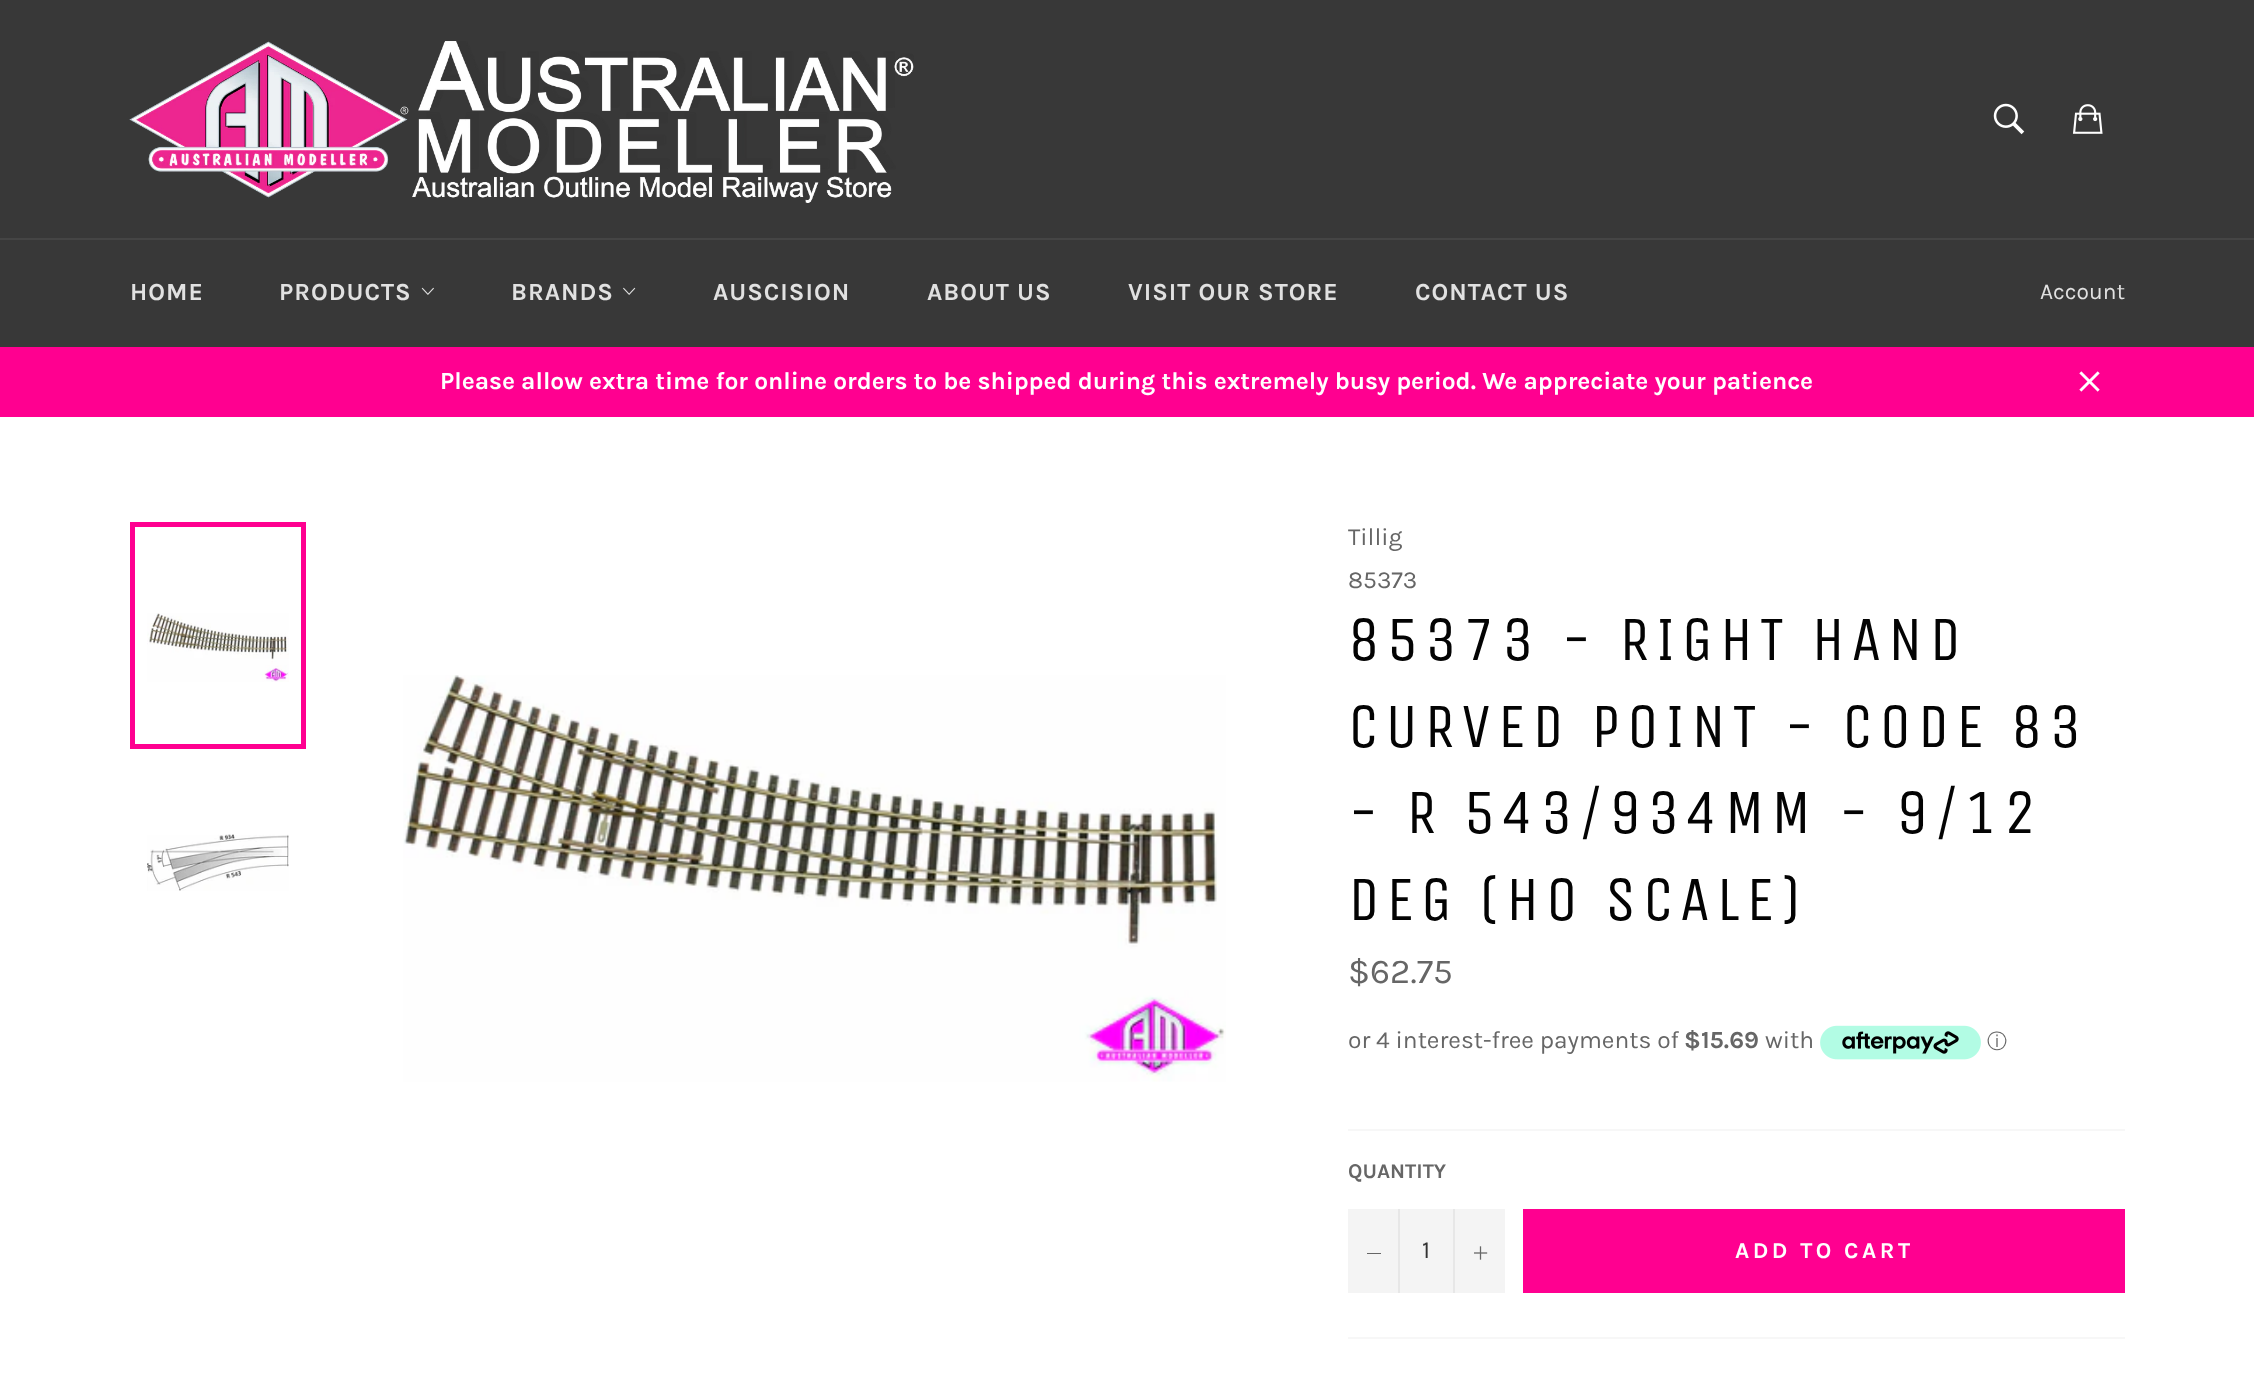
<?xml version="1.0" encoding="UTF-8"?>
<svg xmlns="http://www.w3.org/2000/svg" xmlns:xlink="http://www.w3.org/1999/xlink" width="2254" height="1388">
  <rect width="100%" height="100%" fill="#ffffff" />
  <rect width="2254" height="347" fill="#383838" />
  <image x="129" y="41" width="785" height="162" xlink:href="image1.png" />
  <image x="1993" y="103" width="32" height="32" xlink:href="image2.png" />
  <image x="2072" y="104" width="31" height="30" xlink:href="image3.png" />
  <rect y="238" width="2254" height="2" fill="#454545" />
  <image x="421" y="287" width="13" height="8" xlink:href="image4.png" />
  <image x="623" y="287" width="13" height="8" xlink:href="image5.png" />
  <rect y="347" width="2254" height="70" fill="#ff0090" />
  <image x="2079" y="371" width="21" height="21" xlink:href="image6.png" />
  <image x="147" y="613" width="142" height="69" xlink:href="image7.png" />
  <rect x="132.5" y="524.5" width="171" height="222" fill="none" stroke="#ff0090" stroke-width="5" />
  <image x="147" y="834" width="142" height="57" xlink:href="image8.png" />
  <image x="403" y="675" width="823" height="407" xlink:href="image9.png" />
  <image x="1820" y="1025" width="161" height="35" xlink:href="image10.png" />
  <rect x="1348" y="1129" width="777" height="2" fill="#f7f7f7" />
  <rect x="1348" y="1209" width="157" height="84" fill="#f4f4f4" />
  <rect x="1398" y="1209" width="2" height="84" fill="#e7e7e7" />
  <rect x="1367" y="1253" width="14" height="1" fill="#666666" />
  <rect x="1453" y="1209" width="2" height="84" fill="#e7e7e7" />
  <image x="1474" y="1246" width="14" height="14" xlink:href="image11.png" />
  <rect x="1523" y="1209" width="602" height="84" fill="#ff0090" />
  <rect x="1348" y="1337" width="777" height="2" fill="#f7f7f7" />
  <text x="130" y="300" style="font-family: Karla; font-size: 24.5px; font-weight: bold; letter-spacing: 1px; fill: #e1e1e1">HOME</text>
  <text x="279" y="300" style="font-family: Karla; font-size: 24.5px; font-weight: bold; letter-spacing: 1px; fill: #e1e1e1">PRODUCTS</text>
  <text x="511" y="300" style="font-family: Karla; font-size: 24.5px; font-weight: bold; letter-spacing: 1px; fill: #e1e1e1">BRANDS</text>
  <text x="713" y="300" style="font-family: Karla; font-size: 24.5px; font-weight: bold; letter-spacing: 1px; fill: #e1e1e1">AUSCISION</text>
  <text x="927" y="300" style="font-family: Karla; font-size: 24.5px; font-weight: bold; letter-spacing: 1px; fill: #e1e1e1">ABOUT US</text>
  <text x="1128" y="300" style="font-family: Karla; font-size: 24.5px; font-weight: bold; letter-spacing: 1px; fill: #e1e1e1">VISIT OUR STORE</text>
  <text x="1415" y="300" style="font-family: Karla; font-size: 24.5px; font-weight: bold; letter-spacing: 1px; fill: #e1e1e1">CONTACT US</text>
  <text x="2040" y="299" style="font-family: Karla; font-size: 22.75px; fill: #e1e1e1">Account</text>
  <text x="440" y="389" style="font-family: Karla; font-size: 24.5px; font-weight: bold; fill: #ffffff">Please allow extra time for online orders to be shipped during this extremely busy period. We appreciate your patience</text>
  <text x="1348" y="545" style="font-family: Karla; font-size: 24.5px; fill: #666666">Tillig</text>
  <text x="1348" y="588" style="font-family: Karla; font-size: 24.5px; fill: #666666">85373</text>
  <text x="1348" y="660" style="font-family: Unica One; font-size: 63px; letter-spacing: 6.3px; fill: #030303">85373 - RIGHT HAND</text>
  <text x="1348" y="747" style="font-family: Unica One; font-size: 63px; letter-spacing: 6.3px; fill: #030303">CURVED POINT - CODE 83</text>
  <text x="1348" y="833" style="font-family: Unica One; font-size: 63px; letter-spacing: 6.3px; fill: #030303">- R 543/934MM - 9/12</text>
  <text x="1348" y="920" style="font-family: Unica One; font-size: 63px; letter-spacing: 6.3px; fill: #030303">DEG (HO SCALE)</text>
  <text x="1348" y="983" style="font-family: Karla; font-size: 35px; fill: #666666">$62.75</text>
  <text x="1348" y="1048" style="font-family: Karla; font-size: 24.5px; fill: #666666">or 4 interest-free payments of</text>
  <text x="1684" y="1048" style="font-family: Karla; font-size: 24.5px; font-weight: bold; fill: #666666">$15.69</text>
  <text x="1765" y="1048" style="font-family: Karla; font-size: 24.5px; fill: #666666">with</text>
  <text x="1987" y="1048" style="font-family: WenQuanYi Zen Hei; font-size: 20px; font-weight: 500; fill: #666666">ⓘ</text>
  <text x="1348" y="1178" style="font-family: Karla; font-size: 21px; font-weight: bold; fill: #666666">QUANTITY</text>
  <text x="1422" y="1258" style="font-family: Karla; font-size: 24.5px; fill: #333333">1</text>
  <text x="1735" y="1258" style="font-family: Karla; font-size: 22.75px; font-weight: bold; letter-spacing: 3.5px; fill: #ffffff">ADD TO CART</text>
</svg>
